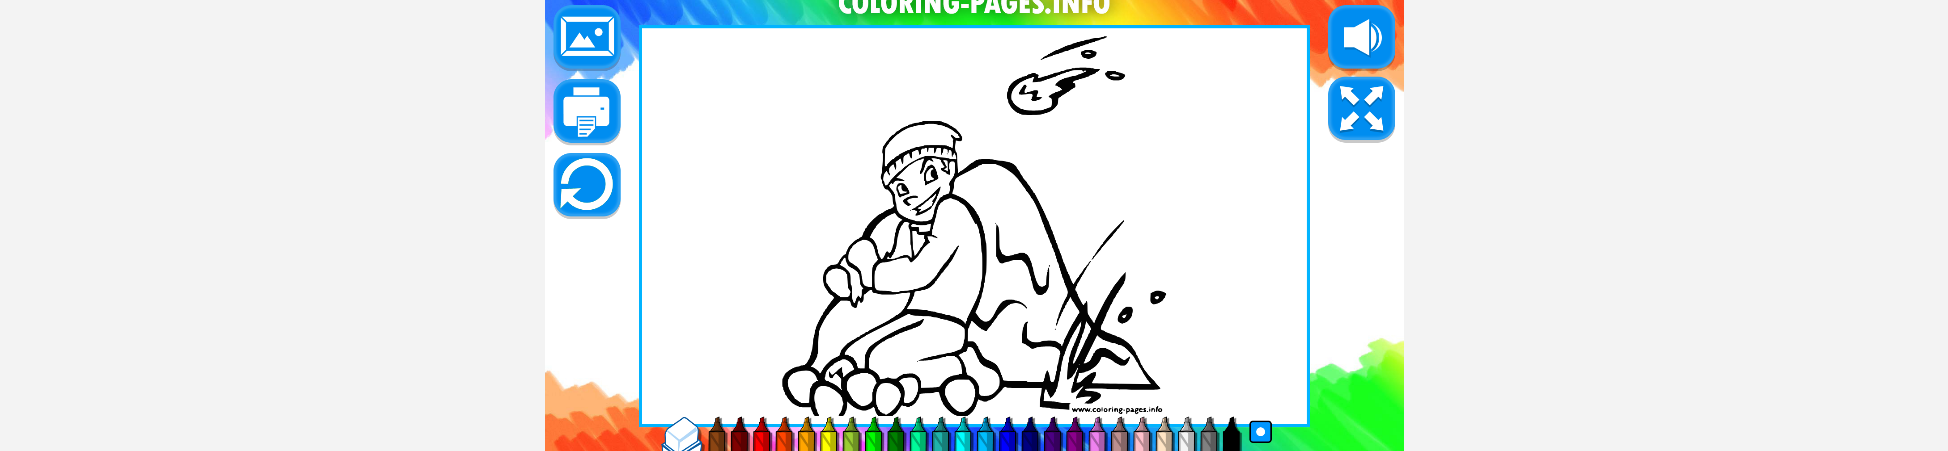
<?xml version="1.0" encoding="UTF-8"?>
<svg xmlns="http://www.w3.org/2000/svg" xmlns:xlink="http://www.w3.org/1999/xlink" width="1948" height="451">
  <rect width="100%" height="100%" fill="#f3f3f3" />
  <image x="545" y="0" width="859" height="451" xlink:href="image1.png" />
  <image x="553" y="5" width="842" height="446" xlink:href="image2.png" />
</svg>
